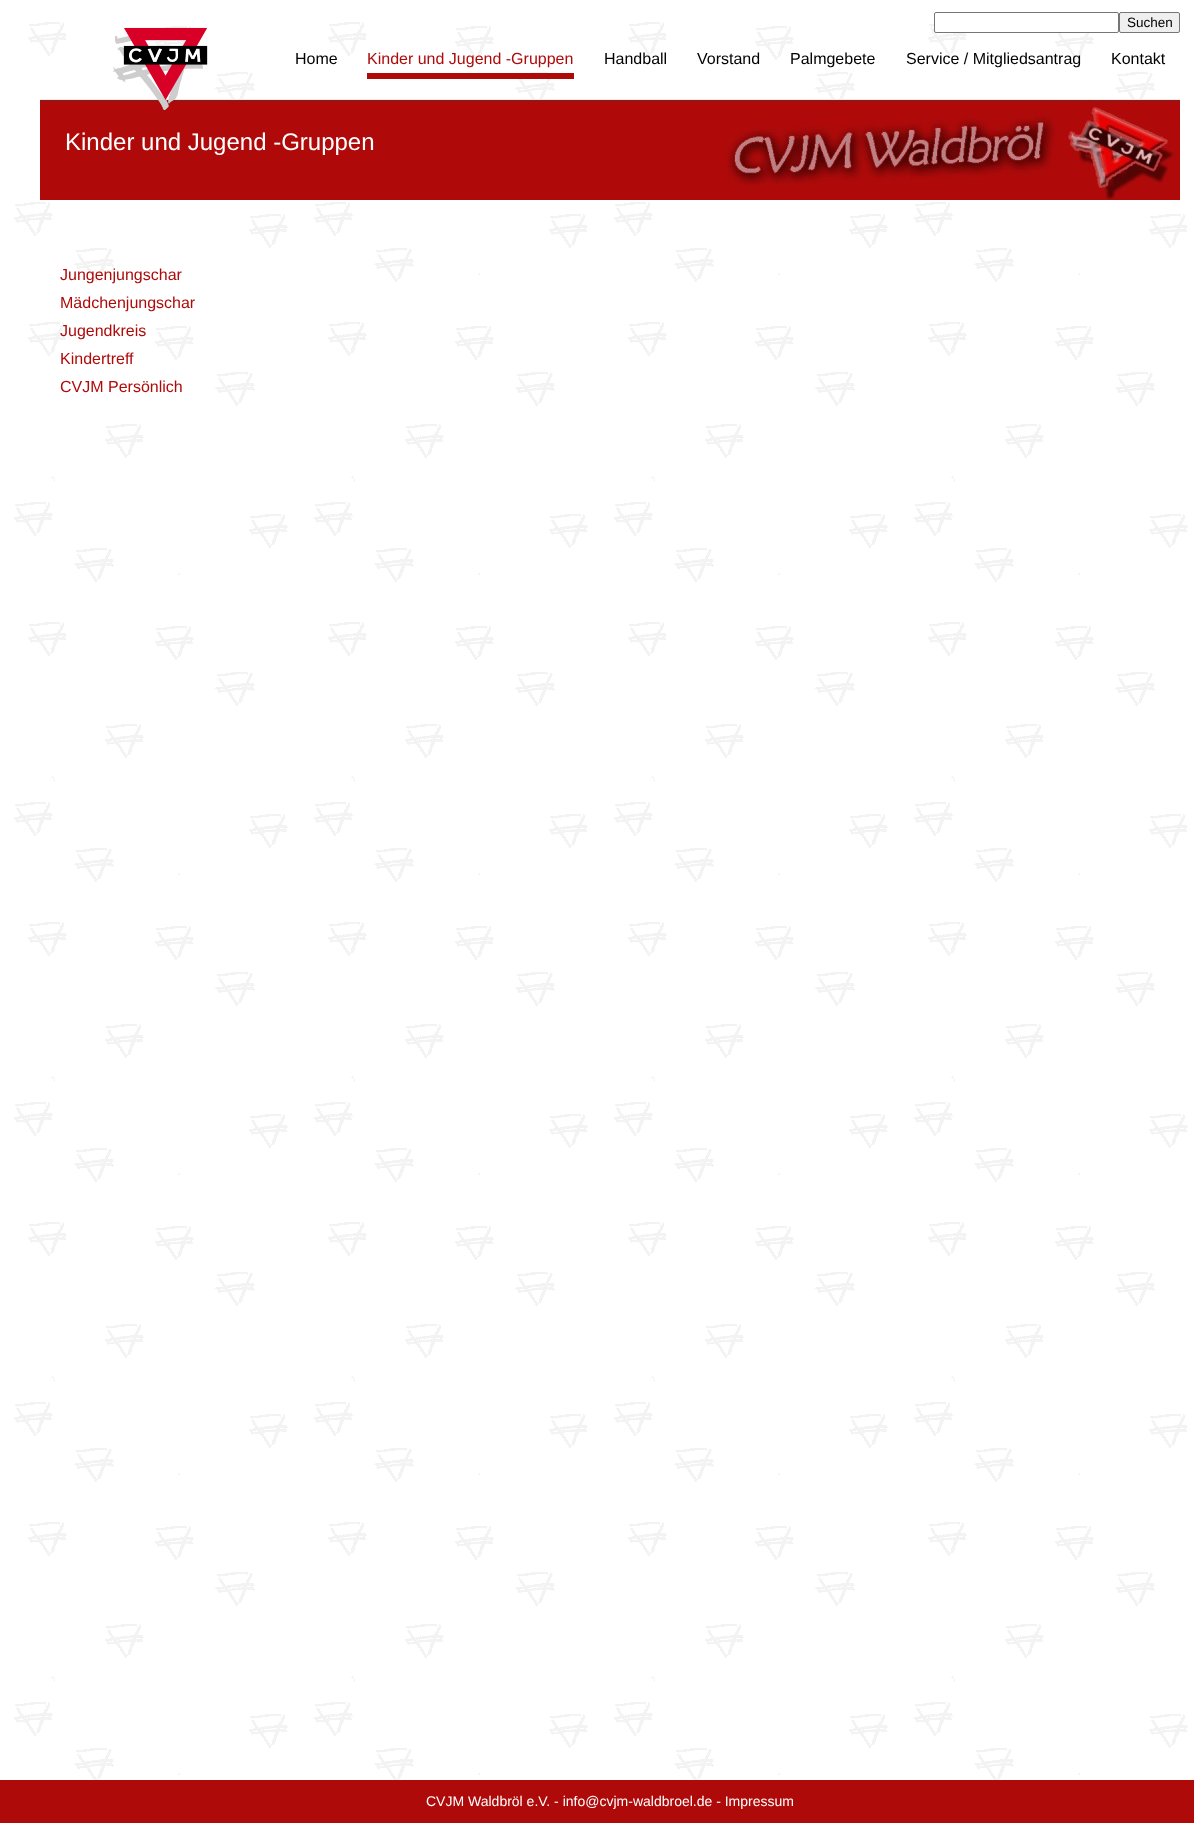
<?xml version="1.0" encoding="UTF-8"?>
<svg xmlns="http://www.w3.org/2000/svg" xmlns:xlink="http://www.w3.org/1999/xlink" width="1194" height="1823">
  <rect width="100%" height="100%" fill="#ffffff" />
  <image x="14" y="22" width="1174" height="1758" xlink:href="image1.png" />
  <rect x="934.5" y="12.5" width="184" height="20" rx="1.5" fill="#ffffff" stroke="#767676" />
  <rect x="1119.5" y="12.5" width="60" height="20" rx="1.5" fill="#efefef" stroke="#767676" />
  <image x="40" y="99" width="1140" height="101" xlink:href="image3.png" />
  <image x="113" y="27" width="95" height="84" xlink:href="image2.png" />
  <rect x="367" y="73" width="207" height="6" fill="#af0a0a" />
  <rect y="1780" width="1194" height="43" fill="#af0a0a" />
  <text x="1127" y="27" style="font-family: Liberation Sans; font-size: 13.5px; fill: #000000">Suchen</text>
  <text x="295" y="64" style="font-family: Liberation Sans; font-size: 16px; fill: #000000">Home</text>
  <text x="367" y="64" style="font-family: Liberation Sans; font-size: 16px; fill: #af0a0a">Kinder und Jugend -Gruppen</text>
  <text x="604" y="64" style="font-family: Liberation Sans; font-size: 16px; fill: #000000">Handball</text>
  <text x="697" y="64" style="font-family: Liberation Sans; font-size: 16px; fill: #000000">Vorstand</text>
  <text x="790" y="64" style="font-family: Liberation Sans; font-size: 16px; fill: #000000">Palmgebete</text>
  <text x="906" y="64" style="font-family: Liberation Sans; font-size: 16px; fill: #000000">Service / Mitgliedsantrag</text>
  <text x="1111" y="64" style="font-family: Liberation Sans; font-size: 16px; fill: #000000">Kontakt</text>
  <text x="65" y="150" style="font-family: Liberation Sans; font-size: 24px; fill: #ffffff">Kinder und Jugend -Gruppen</text>
  <text x="60" y="280" style="font-family: Liberation Sans; font-size: 16px; fill: #af0a0a">Jungenjungschar</text>
  <text x="60" y="308" style="font-family: Liberation Sans; font-size: 16px; fill: #af0a0a">Mädchenjungschar</text>
  <text x="60" y="336" style="font-family: Liberation Sans; font-size: 16px; fill: #af0a0a">Jugendkreis</text>
  <text x="60" y="364" style="font-family: Liberation Sans; font-size: 16px; fill: #af0a0a">Kindertreff</text>
  <text x="60" y="392" style="font-family: Liberation Sans; font-size: 16px; fill: #af0a0a">CVJM Persönlich</text>
  <text x="426" y="1806" style="font-family: Liberation Sans; font-size: 14px; fill: #ffffff">CVJM Waldbröl e.V. - info@cvjm-waldbroel.de - Impressum</text>
</svg>
